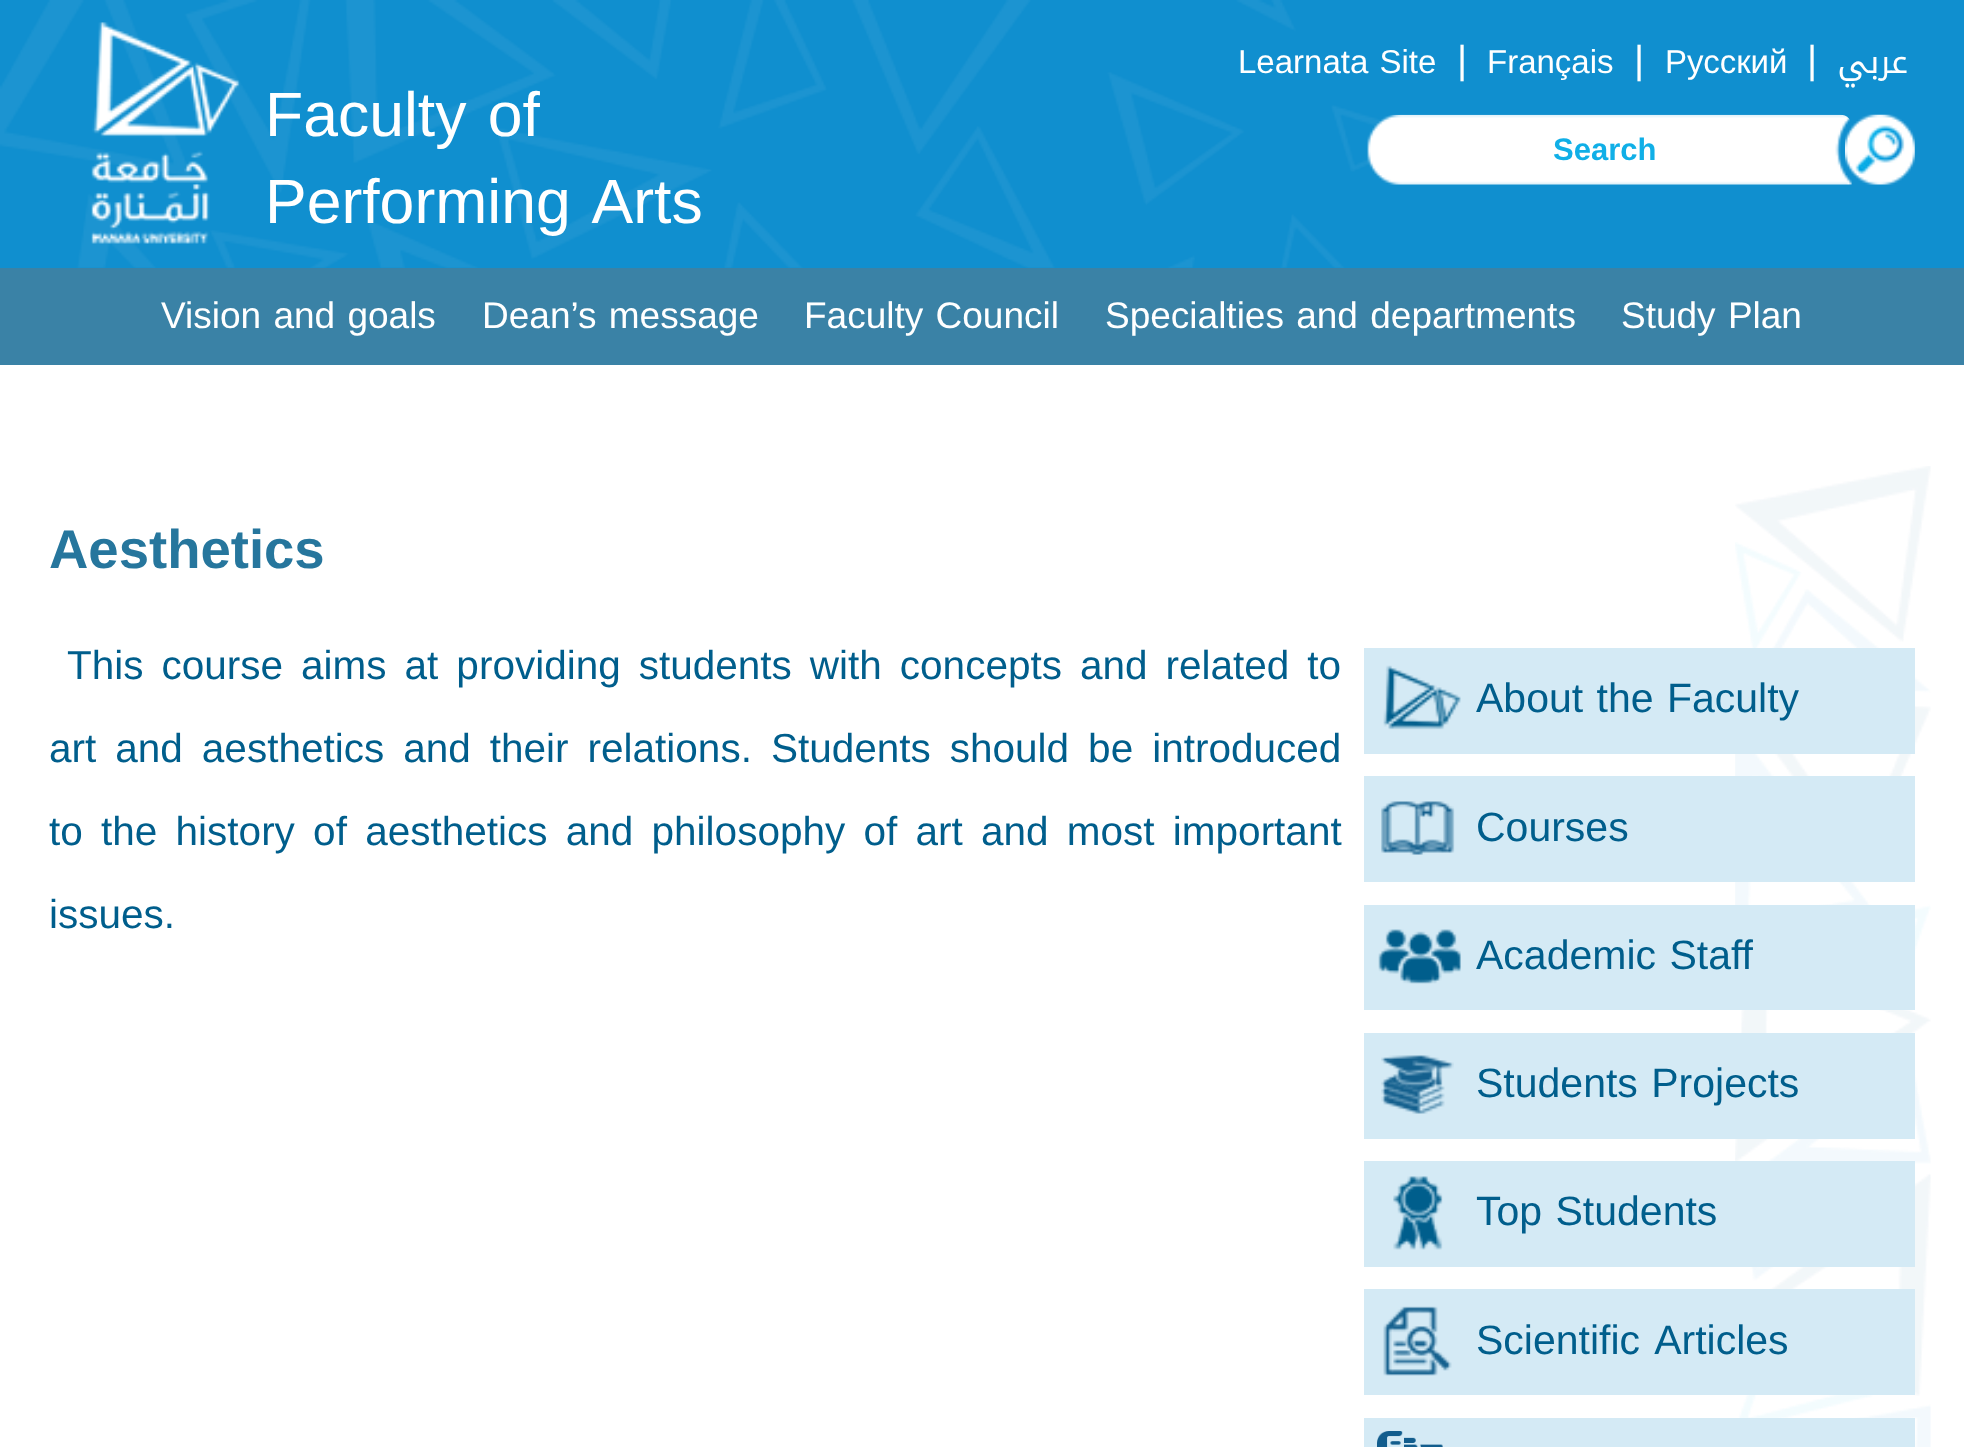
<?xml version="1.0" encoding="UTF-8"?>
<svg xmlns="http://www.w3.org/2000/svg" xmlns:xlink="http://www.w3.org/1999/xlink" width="1964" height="1447">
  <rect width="100%" height="100%" fill="#ffffff" />
  <rect width="1964" height="268" fill="#108fcf" />
  <image x="0" y="0" width="1386" height="268" xlink:href="image1.png" />
  <image x="91" y="22" width="149" height="222" xlink:href="image2.png" />
  <image x="1845" y="114" width="70" height="71" xlink:href="image4.png" />
  <image x="1367" y="114" width="485" height="71" xlink:href="image3.png" />
  <rect y="268" width="1964" height="97" fill="#3a82a6" />
  <image x="1735" y="466" width="196" height="981" xlink:href="image5.png" />
  <rect x="1364" y="648" width="551" height="106" fill="#d4eaf5" />
  <image x="1383" y="665" width="78" height="65" xlink:href="image6.png" />
  <rect x="1364" y="776" width="551" height="106" fill="#d4eaf5" />
  <image x="1381" y="801" width="74" height="54" xlink:href="image7.png" />
  <rect x="1364" y="905" width="551" height="105" fill="#d4eaf5" />
  <image x="1378" y="929" width="83" height="55" xlink:href="image8.png" />
  <rect x="1364" y="1033" width="551" height="106" fill="#d4eaf5" />
  <image x="1381" y="1055" width="73" height="59" xlink:href="image9.png" />
  <rect x="1364" y="1161" width="551" height="106" fill="#d4eaf5" />
  <image x="1393" y="1176" width="50" height="74" xlink:href="image10.png" />
  <rect x="1364" y="1289" width="551" height="106" fill="#d4eaf5" />
  <image x="1383" y="1306" width="69" height="70" xlink:href="image11.png" />
  <rect x="1364" y="1418" width="551" height="29" fill="#d4eaf5" />
  <image x="1377" y="1431" width="66" height="16" xlink:href="image12.png" />
  <text x="265" y="136" word-spacing="4" style="font-family: Liberation Sans; font-size: 62.5px; fill: #ffffff">Faculty of</text>
  <text x="265" y="223" word-spacing="7" style="font-family: Liberation Sans; font-size: 62.5px; fill: #ffffff">Performing Arts</text>
  <text x="1238" y="73" word-spacing="2" style="font-family: Liberation Sans; font-size: 33px; fill: #ffffff">Learnata Site</text>
  <text x="1457" y="73" style="font-family: Liberation Sans; font-size: 39px; fill: #ffffff">|</text>
  <text x="1487" y="73" style="font-family: Liberation Sans; font-size: 33px; fill: #ffffff">Français</text>
  <text x="1634" y="73" style="font-family: Liberation Sans; font-size: 39px; fill: #ffffff">|</text>
  <text x="1665" y="73" style="font-family: Liberation Sans; font-size: 33px; fill: #ffffff">Русский</text>
  <text x="1807" y="73" style="font-family: Liberation Sans; font-size: 39px; fill: #ffffff">|</text>
  <text x="1908" y="73" style="font-family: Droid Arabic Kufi; font-size: 33px; direction: rtl; fill: #ffffff">عربي</text>
  <text x="1553" y="160" style="font-family: Liberation Sans; font-size: 31px; font-weight: bold; fill: #10afe7">Search</text>
  <text x="161" y="328" word-spacing="2" style="font-family: Liberation Sans; font-size: 37px; fill: #ffffff">Vision and goals</text>
  <text x="482" y="328" word-spacing="2" style="font-family: Liberation Sans; font-size: 37px; fill: #ffffff">Dean’s message</text>
  <text x="804" y="328" word-spacing="2" style="font-family: Liberation Sans; font-size: 37px; fill: #ffffff">Faculty Council</text>
  <text x="1105" y="328" word-spacing="2" style="font-family: Liberation Sans; font-size: 37px; fill: #ffffff">Specialties and departments</text>
  <text x="1621" y="328" word-spacing="2" style="font-family: Liberation Sans; font-size: 37px; fill: #ffffff">Study Plan</text>
  <text x="49" y="568" style="font-family: Liberation Sans; font-size: 54.5px; font-weight: bold; fill: #26769d">Aesthetics</text>
  <text x="67" y="679" word-spacing="6.75" style="font-family: Liberation Sans; font-size: 40.5px; fill: #005e8c">This course aims at providing students with concepts and related to</text>
  <text x="49" y="762" word-spacing="7.75" style="font-family: Liberation Sans; font-size: 40.5px; fill: #005e8c">art and aesthetics and their relations. Students should be introduced</text>
  <text x="49" y="845" word-spacing="7" style="font-family: Liberation Sans; font-size: 40.5px; fill: #005e8c">to the history of aesthetics and philosophy of art and most important</text>
  <text x="49" y="928" style="font-family: Liberation Sans; font-size: 40.5px; fill: #005e8c">issues.</text>
  <text x="1476" y="712" word-spacing="2" style="font-family: Liberation Sans; font-size: 41px; fill: #005e8c">About the Faculty</text>
  <text x="1476" y="841" style="font-family: Liberation Sans; font-size: 41px; fill: #005e8c">Courses</text>
  <text x="1476" y="969" word-spacing="2" style="font-family: Liberation Sans; font-size: 41px; fill: #005e8c">Academic Staff</text>
  <text x="1476" y="1097" word-spacing="2" style="font-family: Liberation Sans; font-size: 41px; fill: #005e8c">Students Projects</text>
  <text x="1476" y="1225" word-spacing="2" style="font-family: Liberation Sans; font-size: 41px; fill: #005e8c">Top Students</text>
  <text x="1476" y="1354" word-spacing="5" style="font-family: Liberation Sans; font-size: 41px; fill: #005e8c">Scientific Articles</text>
</svg>
